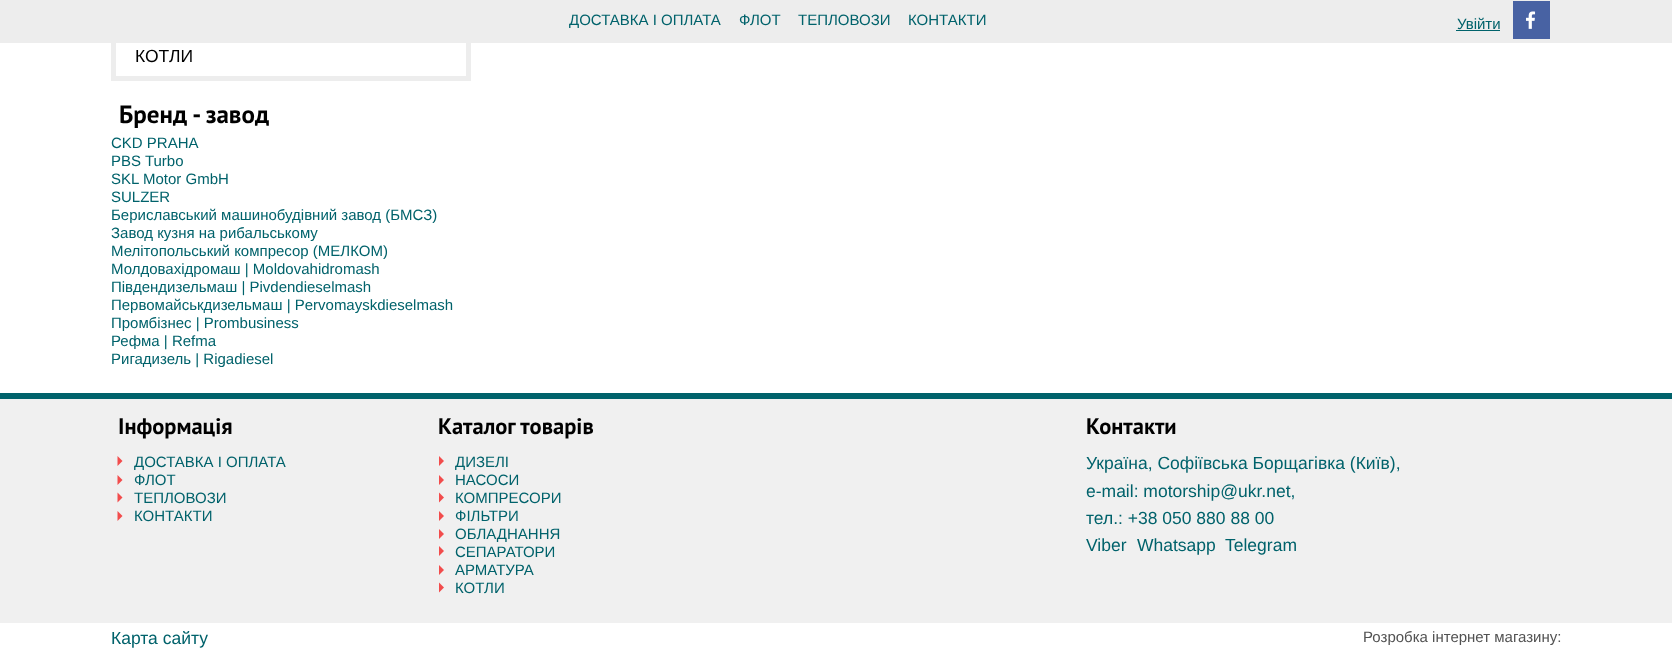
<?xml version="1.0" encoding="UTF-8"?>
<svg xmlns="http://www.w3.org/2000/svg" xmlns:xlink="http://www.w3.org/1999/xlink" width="1672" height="653">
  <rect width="100%" height="100%" fill="#ffffff" />
  <rect x="113.5" y="-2.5" width="355" height="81" fill="none" stroke="#ededed" stroke-width="5" />
  <rect width="1672" height="43" fill="#ededed" />
  <rect x="1456" y="30" width="44" height="1" fill="#00626b" />
  <rect x="1513" y="1" width="37" height="38" fill="#4862a3" />
  <image x="1526" y="11" width="10" height="18" xlink:href="image1.png" />
  <rect y="393" width="1672" height="6" fill="#00626b" />
  <rect y="399" width="1672" height="224" fill="#f0f0f0" />
  <path d="M 117.5 466 v -10 l 5 5 z" fill="#f24c4c" />
  <path d="M 117.5 485 v -10 l 5 5 z" fill="#f24c4c" />
  <path d="M 117.5 502.5 v -10 l 5 5 z" fill="#f24c4c" />
  <path d="M 117.5 521 v -10 l 5 5 z" fill="#f24c4c" />
  <path d="M 439 466 v -10 l 5 5 z" fill="#f24c4c" />
  <path d="M 439 485 v -10 l 5 5 z" fill="#f24c4c" />
  <path d="M 439 502.5 v -10 l 5 5 z" fill="#f24c4c" />
  <path d="M 439 521 v -10 l 5 5 z" fill="#f24c4c" />
  <path d="M 439 539 v -10 l 5 5 z" fill="#f24c4c" />
  <path d="M 439 556 v -10 l 5 5 z" fill="#f24c4c" />
  <path d="M 439 575 v -10 l 5 5 z" fill="#f24c4c" />
  <path d="M 439 592.5 v -10 l 5 5 z" fill="#f24c4c" />
  <text x="569" y="25" style="font-family: Liberation Sans; font-size: 15px; fill: #00626b">ДОСТАВКА І ОПЛАТА</text>
  <text x="739" y="25" style="font-family: Liberation Sans; font-size: 15px; fill: #00626b">ФЛОТ</text>
  <text x="798" y="25" style="font-family: Liberation Sans; font-size: 15px; fill: #00626b">ТЕПЛОВОЗИ</text>
  <text x="908" y="25" style="font-family: Liberation Sans; font-size: 15px; fill: #00626b">КОНТАКТИ</text>
  <text x="1457" y="29" style="font-family: Liberation Sans; font-size: 15px; fill: #00626b">Увійти</text>
  <text x="135" y="62" style="font-family: Liberation Sans; font-size: 17.5px; fill: #000000">КОТЛИ</text>
  <text x="119" y="123" style="font-family: PT Sans; font-size: 25px; font-weight: bold; fill: #000000">Бренд - завод</text>
  <text x="111" y="148" style="font-family: Liberation Sans; font-size: 15px; fill: #00626b">CKD PRAHA</text>
  <text x="111" y="166" style="font-family: Liberation Sans; font-size: 15px; fill: #00626b">PBS Turbo</text>
  <text x="111" y="184" style="font-family: Liberation Sans; font-size: 15px; fill: #00626b">SKL Motor GmbH</text>
  <text x="111" y="202" style="font-family: Liberation Sans; font-size: 15px; fill: #00626b">SULZER</text>
  <text x="111" y="220" style="font-family: Liberation Sans; font-size: 15px; fill: #00626b">Бериславський машинобудівний завод (БМСЗ)</text>
  <text x="111" y="238" style="font-family: Liberation Sans; font-size: 15px; fill: #00626b">Завод кузня на рибальському</text>
  <text x="111" y="256" style="font-family: Liberation Sans; font-size: 15px; fill: #00626b">Мелітопольський компресор (МЕЛКОМ)</text>
  <text x="111" y="274" style="font-family: Liberation Sans; font-size: 15px; fill: #00626b">Молдовахідромаш | Moldovahidromash</text>
  <text x="111" y="292" style="font-family: Liberation Sans; font-size: 15px; fill: #00626b">Південдизельмаш | Pivdendieselmash</text>
  <text x="111" y="310" style="font-family: Liberation Sans; font-size: 15px; fill: #00626b">Первомайськдизельмаш | Pervomayskdieselmash</text>
  <text x="111" y="328" style="font-family: Liberation Sans; font-size: 15px; fill: #00626b">Промбізнес | Prombusiness</text>
  <text x="111" y="346" style="font-family: Liberation Sans; font-size: 15px; fill: #00626b">Рефма | Refma</text>
  <text x="111" y="364" style="font-family: Liberation Sans; font-size: 15px; fill: #00626b">Ригадизель | Rigadiesel</text>
  <text x="118" y="434" style="font-family: PT Sans; font-size: 22.5px; font-weight: bold; fill: #000000">Інформація</text>
  <text x="134" y="467" style="font-family: Liberation Sans; font-size: 15px; fill: #00626b">ДОСТАВКА І ОПЛАТА</text>
  <text x="134" y="485" style="font-family: Liberation Sans; font-size: 15px; fill: #00626b">ФЛОТ</text>
  <text x="134" y="503" style="font-family: Liberation Sans; font-size: 15px; fill: #00626b">ТЕПЛОВОЗИ</text>
  <text x="134" y="521" style="font-family: Liberation Sans; font-size: 15px; fill: #00626b">КОНТАКТИ</text>
  <text x="438" y="434" style="font-family: PT Sans; font-size: 22.5px; font-weight: bold; fill: #000000">Каталог товарів</text>
  <text x="455" y="467" style="font-family: Liberation Sans; font-size: 15px; fill: #00626b">ДИЗЕЛІ</text>
  <text x="455" y="485" style="font-family: Liberation Sans; font-size: 15px; fill: #00626b">НАСОСИ</text>
  <text x="455" y="503" style="font-family: Liberation Sans; font-size: 15px; fill: #00626b">КОМПРЕСОРИ</text>
  <text x="455" y="521" style="font-family: Liberation Sans; font-size: 15px; fill: #00626b">ФІЛЬТРИ</text>
  <text x="455" y="539" style="font-family: Liberation Sans; font-size: 15px; fill: #00626b">ОБЛАДНАННЯ</text>
  <text x="455" y="557" style="font-family: Liberation Sans; font-size: 15px; fill: #00626b">СЕПАРАТОРИ</text>
  <text x="455" y="575" style="font-family: Liberation Sans; font-size: 15px; fill: #00626b">АРМАТУРА</text>
  <text x="455" y="593" style="font-family: Liberation Sans; font-size: 15px; fill: #00626b">КОТЛИ</text>
  <text x="1086" y="434" style="font-family: PT Sans; font-size: 22.5px; font-weight: bold; fill: #000000">Контакти</text>
  <text x="1086" y="469" style="font-family: Liberation Sans; font-size: 17.5px; fill: #00626b">Україна, Софіївська Борщагівка (Київ),</text>
  <text x="1086" y="497" style="font-family: Liberation Sans; font-size: 17.5px; fill: #00626b">e-mail: motorship@ukr.net,</text>
  <text x="1086" y="524" style="font-family: Liberation Sans; font-size: 17.5px; fill: #00626b">тел.: +38 050 880 88 00</text>
  <text x="1086" y="551" style="font-family: Liberation Sans; font-size: 17.5px; fill: #00626b">Viber</text>
  <text x="1137" y="551" style="font-family: Liberation Sans; font-size: 17.5px; fill: #00626b">Whatsapp</text>
  <text x="1225" y="551" style="font-family: Liberation Sans; font-size: 17.5px; fill: #00626b">Telegram</text>
  <text x="111" y="644" style="font-family: Liberation Sans; font-size: 17.5px; fill: #00626b">Карта сайту</text>
  <text x="1363" y="642" style="font-family: Liberation Sans; font-size: 15px; fill: #525252">Розробка інтернет магазину:</text>
</svg>
